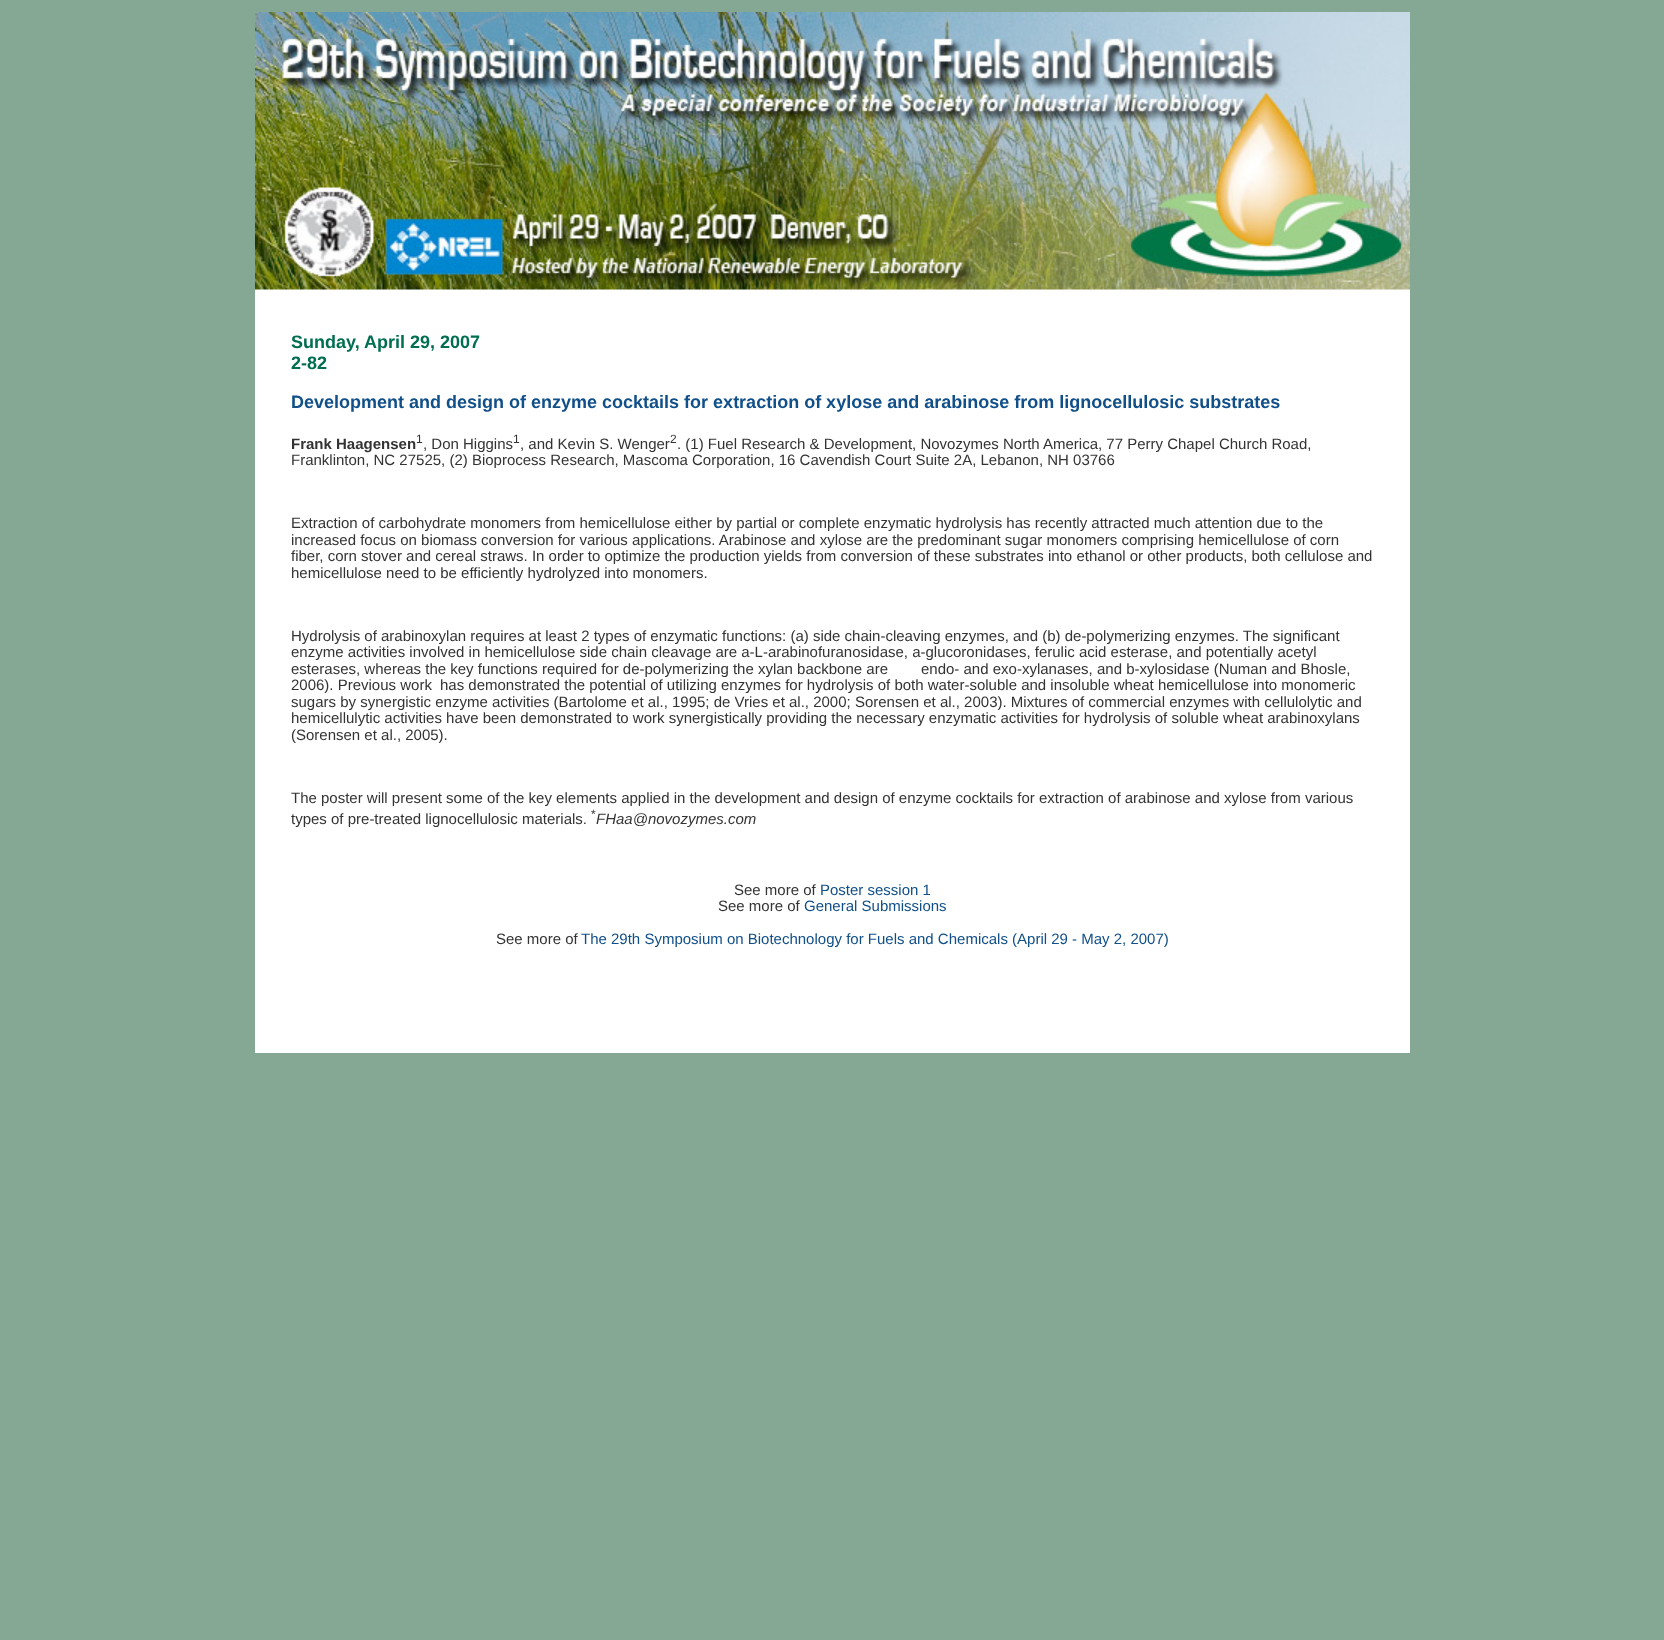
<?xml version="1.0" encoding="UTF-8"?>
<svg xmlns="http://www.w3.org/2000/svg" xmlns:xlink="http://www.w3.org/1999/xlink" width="1664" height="1640">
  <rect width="100%" height="100%" fill="#84a894" />
  <rect x="255" y="289" width="1155" height="764" fill="#ffffff" />
  <image x="255" y="12" width="1155" height="278" xlink:href="image1.png" />
  <text x="291" y="348" style="font-family: Liberation Sans; font-size: 18px; font-weight: bold; fill: #006e51">Sunday, April 29, 2007</text>
  <text x="291" y="369" style="font-family: Liberation Sans; font-size: 18px; font-weight: bold; fill: #006e51">2-82</text>
  <text x="291" y="408" style="font-family: Liberation Sans; font-size: 18px; font-weight: bold; fill: #114f89">Development and design of enzyme cocktails for extraction of xylose and arabinose from lignocellulosic substrates</text>
  <text x="291" y="449" style="font-family: Liberation Sans; font-size: 15px; font-weight: bold; fill: #333333">Frank Haagensen</text>
  <text x="416" y="443" style="font-family: Liberation Sans; font-size: 12px; fill: #333333">1</text>
  <text x="423" y="449" style="font-family: Liberation Sans; font-size: 15px; fill: #333333">, Don Higgins</text>
  <text x="513" y="443" style="font-family: Liberation Sans; font-size: 12px; fill: #333333">1</text>
  <text x="520" y="449" style="font-family: Liberation Sans; font-size: 15px; fill: #333333">, and Kevin S. Wenger</text>
  <text x="670" y="443" style="font-family: Liberation Sans; font-size: 12px; fill: #333333">2</text>
  <text x="677" y="449" style="font-family: Liberation Sans; font-size: 15px; fill: #333333">. (1) Fuel Research &amp; Development, Novozymes North America, 77 Perry Chapel Church Road,</text>
  <text x="291" y="465" style="font-family: Liberation Sans; font-size: 15px; fill: #333333">Franklinton, NC 27525, (2) Bioprocess Research, Mascoma Corporation, 16 Cavendish Court Suite 2A, Lebanon, NH 03766</text>
  <text x="291" y="528" style="font-family: Liberation Sans; font-size: 15px; fill: #333333">Extraction of carbohydrate monomers from hemicellulose either by partial or complete enzymatic hydrolysis has recently attracted much attention due to the</text>
  <text x="291" y="545" style="font-family: Liberation Sans; font-size: 15px; fill: #333333">increased focus on biomass conversion for various applications. Arabinose and xylose are the predominant sugar monomers comprising hemicellulose of corn</text>
  <text x="291" y="561" style="font-family: Liberation Sans; font-size: 15px; fill: #333333">fiber, corn stover and cereal straws. In order to optimize the production yields from conversion of these substrates into ethanol or other products, both cellulose and</text>
  <text x="291" y="578" style="font-family: Liberation Sans; font-size: 15px; fill: #333333">hemicellulose need to be efficiently hydrolyzed into monomers.</text>
  <text x="291" y="641" style="font-family: Liberation Sans; font-size: 15px; fill: #333333">Hydrolysis of arabinoxylan requires at least 2 types of enzymatic functions: (a) side chain-cleaving enzymes, and (b) de-polymerizing enzymes. The significant</text>
  <text x="291" y="657" style="font-family: Liberation Sans; font-size: 15px; fill: #333333">enzyme activities involved in hemicellulose side chain cleavage are a-L-arabinofuranosidase, a-glucoronidases, ferulic acid esterase, and potentially acetyl</text>
  <text x="291" y="674" style="font-family: Liberation Sans; font-size: 15px; fill: #333333">esterases, whereas the key functions required for de-polymerizing the xylan backbone are</text>
  <text x="921" y="674" style="font-family: Liberation Sans; font-size: 15px; fill: #333333">endo- and exo-xylanases, and b-xylosidase (Numan and Bhosle,</text>
  <text x="291" y="690" style="font-family: Liberation Sans; font-size: 15px; fill: #333333">2006). Previous work</text>
  <text x="440" y="690" style="font-family: Liberation Sans; font-size: 15px; fill: #333333">has demonstrated the potential of utilizing enzymes for hydrolysis of both water-soluble and insoluble wheat hemicellulose into monomeric</text>
  <text x="291" y="707" style="font-family: Liberation Sans; font-size: 15px; fill: #333333">sugars by synergistic enzyme activities (Bartolome et al., 1995; de Vries et al., 2000; Sorensen et al., 2003). Mixtures of commercial enzymes with cellulolytic and</text>
  <text x="291" y="723" style="font-family: Liberation Sans; font-size: 15px; fill: #333333">hemicellulytic activities have been demonstrated to work synergistically providing the necessary enzymatic activities for hydrolysis of soluble wheat arabinoxylans</text>
  <text x="291" y="740" style="font-family: Liberation Sans; font-size: 15px; fill: #333333">(Sorensen et al., 2005).</text>
  <text x="291" y="803" style="font-family: Liberation Sans; font-size: 15px; fill: #333333">The poster will present some of the key elements applied in the development and design of enzyme cocktails for extraction of arabinose and xylose from various</text>
  <text x="591" y="818" style="font-family: Liberation Sans; font-size: 12px; fill: #333333">*</text>
  <text x="291" y="824" style="font-family: Liberation Sans; font-size: 15px; fill: #333333">types of pre-treated lignocellulosic materials.</text>
  <text x="596" y="824" style="font-family: Liberation Sans; font-size: 15px; font-style: italic; fill: #333333">FHaa@novozymes.com</text>
  <text x="734" y="895" style="font-family: Liberation Sans; font-size: 15px; fill: #333333">See more of</text>
  <text x="820" y="895" style="font-family: Liberation Sans; font-size: 15px; fill: #114f89">Poster session 1</text>
  <text x="718" y="911" style="font-family: Liberation Sans; font-size: 15px; fill: #333333">See more of</text>
  <text x="804" y="911" style="font-family: Liberation Sans; font-size: 15px; fill: #114f89">General Submissions</text>
  <text x="496" y="944" style="font-family: Liberation Sans; font-size: 15px; fill: #333333">See more of</text>
  <text x="581" y="944" style="font-family: Liberation Sans; font-size: 15px; fill: #114f89">The 29th Symposium on Biotechnology for Fuels and Chemicals (April 29 - May 2, 2007)</text>
</svg>
